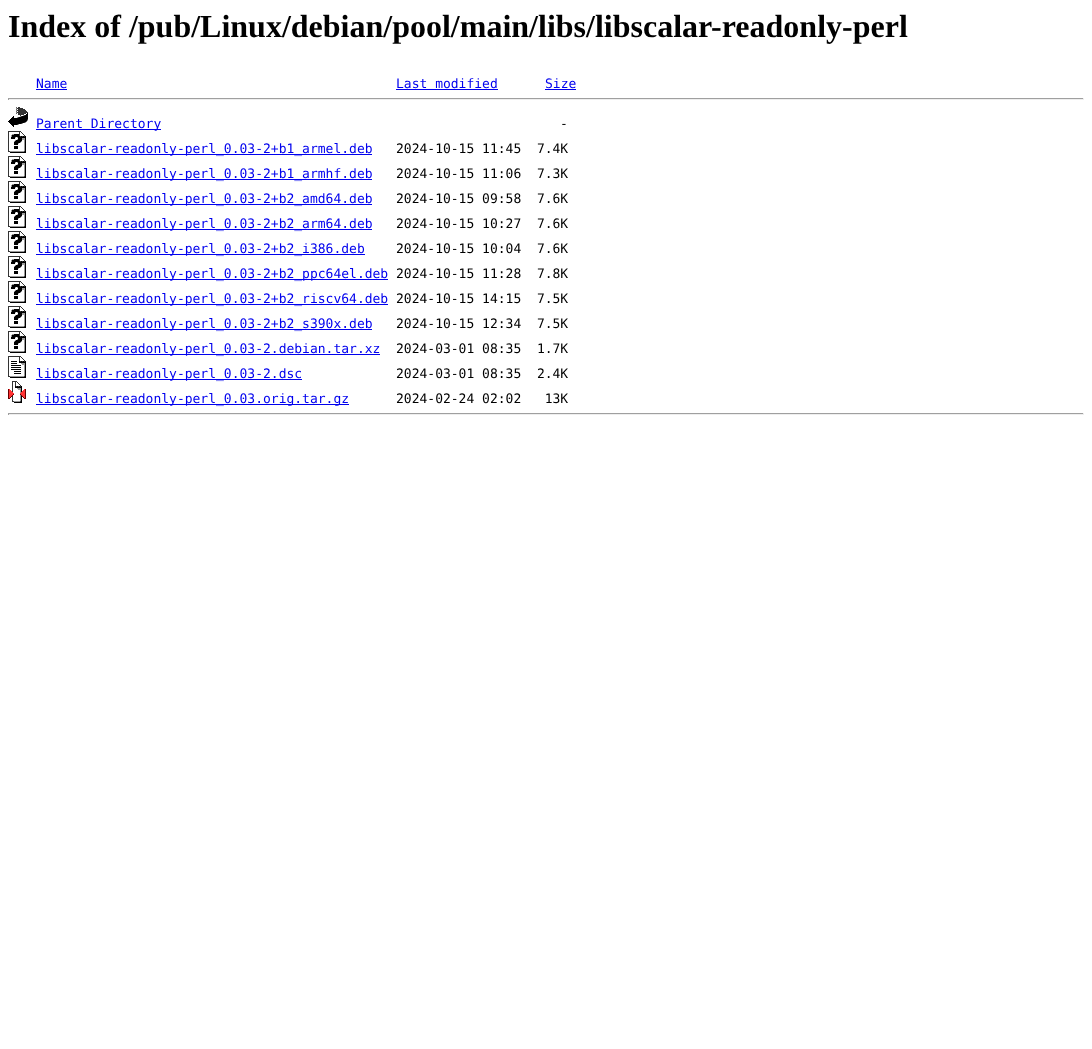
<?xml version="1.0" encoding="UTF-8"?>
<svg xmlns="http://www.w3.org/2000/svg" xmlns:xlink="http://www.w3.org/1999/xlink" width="1092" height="1049">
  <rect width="100%" height="100%" fill="#ffffff" />
  <rect x="36" y="89" width="31" height="1" fill="#0000ee" />
  <rect x="396" y="89" width="102" height="1" fill="#0000ee" />
  <rect x="545" y="89" width="31" height="1" fill="#0000ee" />
  <rect x="8" y="98" width="1076" height="1" fill="#9f9f9f" />
  <rect x="1083" y="98" width="1" height="2" fill="#eeeeee" />
  <rect x="8" y="99" width="1076" height="1" fill="#eeeeee" />
  <rect x="8" y="98" width="1" height="2" fill="#9f9f9f" />
  <image x="8" y="107" width="20" height="20" xlink:href="image1.png" />
  <rect x="36" y="129" width="125" height="1" fill="#0000ee" />
  <image x="8" y="131" width="18" height="22" xlink:href="image2.png" />
  <rect x="36" y="154" width="336" height="1" fill="#0000ee" />
  <image x="8" y="156" width="18" height="22" xlink:href="image2.png" />
  <rect x="36" y="179" width="336" height="1" fill="#0000ee" />
  <image x="8" y="181" width="18" height="22" xlink:href="image2.png" />
  <rect x="36" y="204" width="336" height="1" fill="#0000ee" />
  <image x="8" y="206" width="18" height="22" xlink:href="image2.png" />
  <rect x="36" y="229" width="336" height="1" fill="#0000ee" />
  <image x="8" y="231" width="18" height="22" xlink:href="image2.png" />
  <rect x="36" y="254" width="329" height="1" fill="#0000ee" />
  <image x="8" y="256" width="18" height="22" xlink:href="image2.png" />
  <rect x="36" y="279" width="352" height="1" fill="#0000ee" />
  <image x="8" y="281" width="18" height="22" xlink:href="image2.png" />
  <rect x="36" y="304" width="352" height="1" fill="#0000ee" />
  <image x="8" y="306" width="18" height="22" xlink:href="image2.png" />
  <rect x="36" y="329" width="336" height="1" fill="#0000ee" />
  <image x="8" y="331" width="18" height="22" xlink:href="image2.png" />
  <rect x="36" y="354" width="344" height="1" fill="#0000ee" />
  <image x="8" y="356" width="18" height="22" xlink:href="image3.png" />
  <rect x="36" y="379" width="266" height="1" fill="#0000ee" />
  <image x="8" y="381" width="18" height="22" xlink:href="image4.png" />
  <rect x="36" y="404" width="313" height="1" fill="#0000ee" />
  <rect x="8" y="413" width="1076" height="1" fill="#9f9f9f" />
  <rect x="1083" y="413" width="1" height="2" fill="#eeeeee" />
  <rect x="8" y="414" width="1076" height="1" fill="#eeeeee" />
  <rect x="8" y="413" width="1" height="2" fill="#9f9f9f" />
  <text x="8" y="37" style="font-family: Liberation Serif; font-size: 32px; font-weight: bold; fill: #000000">Index of /pub/Linux/debian/pool/main/libs/libscalar-readonly-perl</text>
  <text x="36" y="88" style="font-family: DejaVu Sans Mono; font-size: 13px; fill: #0000ee">Name</text>
  <text x="396" y="88" style="font-family: DejaVu Sans Mono; font-size: 13px; fill: #0000ee">Last modified</text>
  <text x="545" y="88" style="font-family: DejaVu Sans Mono; font-size: 13px; fill: #0000ee">Size</text>
  <text x="36" y="128" style="font-family: DejaVu Sans Mono; font-size: 13px; fill: #0000ee">Parent Directory</text>
  <text x="560" y="128" style="font-family: DejaVu Sans Mono; font-size: 13px; fill: #000000">-</text>
  <text x="36" y="153" style="font-family: DejaVu Sans Mono; font-size: 13px; fill: #0000ee">libscalar-readonly-perl_0.03-2+b1_armel.deb</text>
  <text x="396" y="153" style="font-family: DejaVu Sans Mono; font-size: 13px; fill: #000000" xml:space="preserve">2024-10-15 11:45  7.4K</text>
  <text x="36" y="178" style="font-family: DejaVu Sans Mono; font-size: 13px; fill: #0000ee">libscalar-readonly-perl_0.03-2+b1_armhf.deb</text>
  <text x="396" y="178" style="font-family: DejaVu Sans Mono; font-size: 13px; fill: #000000" xml:space="preserve">2024-10-15 11:06  7.3K</text>
  <text x="36" y="203" style="font-family: DejaVu Sans Mono; font-size: 13px; fill: #0000ee">libscalar-readonly-perl_0.03-2+b2_amd64.deb</text>
  <text x="396" y="203" style="font-family: DejaVu Sans Mono; font-size: 13px; fill: #000000" xml:space="preserve">2024-10-15 09:58  7.6K</text>
  <text x="36" y="228" style="font-family: DejaVu Sans Mono; font-size: 13px; fill: #0000ee">libscalar-readonly-perl_0.03-2+b2_arm64.deb</text>
  <text x="396" y="228" style="font-family: DejaVu Sans Mono; font-size: 13px; fill: #000000" xml:space="preserve">2024-10-15 10:27  7.6K</text>
  <text x="36" y="253" style="font-family: DejaVu Sans Mono; font-size: 13px; fill: #0000ee">libscalar-readonly-perl_0.03-2+b2_i386.deb</text>
  <text x="396" y="253" style="font-family: DejaVu Sans Mono; font-size: 13px; fill: #000000" xml:space="preserve">2024-10-15 10:04  7.6K</text>
  <text x="36" y="278" style="font-family: DejaVu Sans Mono; font-size: 13px; fill: #0000ee">libscalar-readonly-perl_0.03-2+b2_ppc64el.deb</text>
  <text x="396" y="278" style="font-family: DejaVu Sans Mono; font-size: 13px; fill: #000000" xml:space="preserve">2024-10-15 11:28  7.8K</text>
  <text x="36" y="303" style="font-family: DejaVu Sans Mono; font-size: 13px; fill: #0000ee">libscalar-readonly-perl_0.03-2+b2_riscv64.deb</text>
  <text x="396" y="303" style="font-family: DejaVu Sans Mono; font-size: 13px; fill: #000000" xml:space="preserve">2024-10-15 14:15  7.5K</text>
  <text x="36" y="328" style="font-family: DejaVu Sans Mono; font-size: 13px; fill: #0000ee">libscalar-readonly-perl_0.03-2+b2_s390x.deb</text>
  <text x="396" y="328" style="font-family: DejaVu Sans Mono; font-size: 13px; fill: #000000" xml:space="preserve">2024-10-15 12:34  7.5K</text>
  <text x="36" y="353" style="font-family: DejaVu Sans Mono; font-size: 13px; fill: #0000ee">libscalar-readonly-perl_0.03-2.debian.tar.xz</text>
  <text x="396" y="353" style="font-family: DejaVu Sans Mono; font-size: 13px; fill: #000000" xml:space="preserve">2024-03-01 08:35  1.7K</text>
  <text x="36" y="378" style="font-family: DejaVu Sans Mono; font-size: 13px; fill: #0000ee">libscalar-readonly-perl_0.03-2.dsc</text>
  <text x="396" y="378" style="font-family: DejaVu Sans Mono; font-size: 13px; fill: #000000" xml:space="preserve">2024-03-01 08:35  2.4K</text>
  <text x="36" y="403" style="font-family: DejaVu Sans Mono; font-size: 13px; fill: #0000ee">libscalar-readonly-perl_0.03.orig.tar.gz</text>
  <text x="396" y="403" style="font-family: DejaVu Sans Mono; font-size: 13px; fill: #000000" xml:space="preserve">2024-02-24 02:02   13K</text>
</svg>
